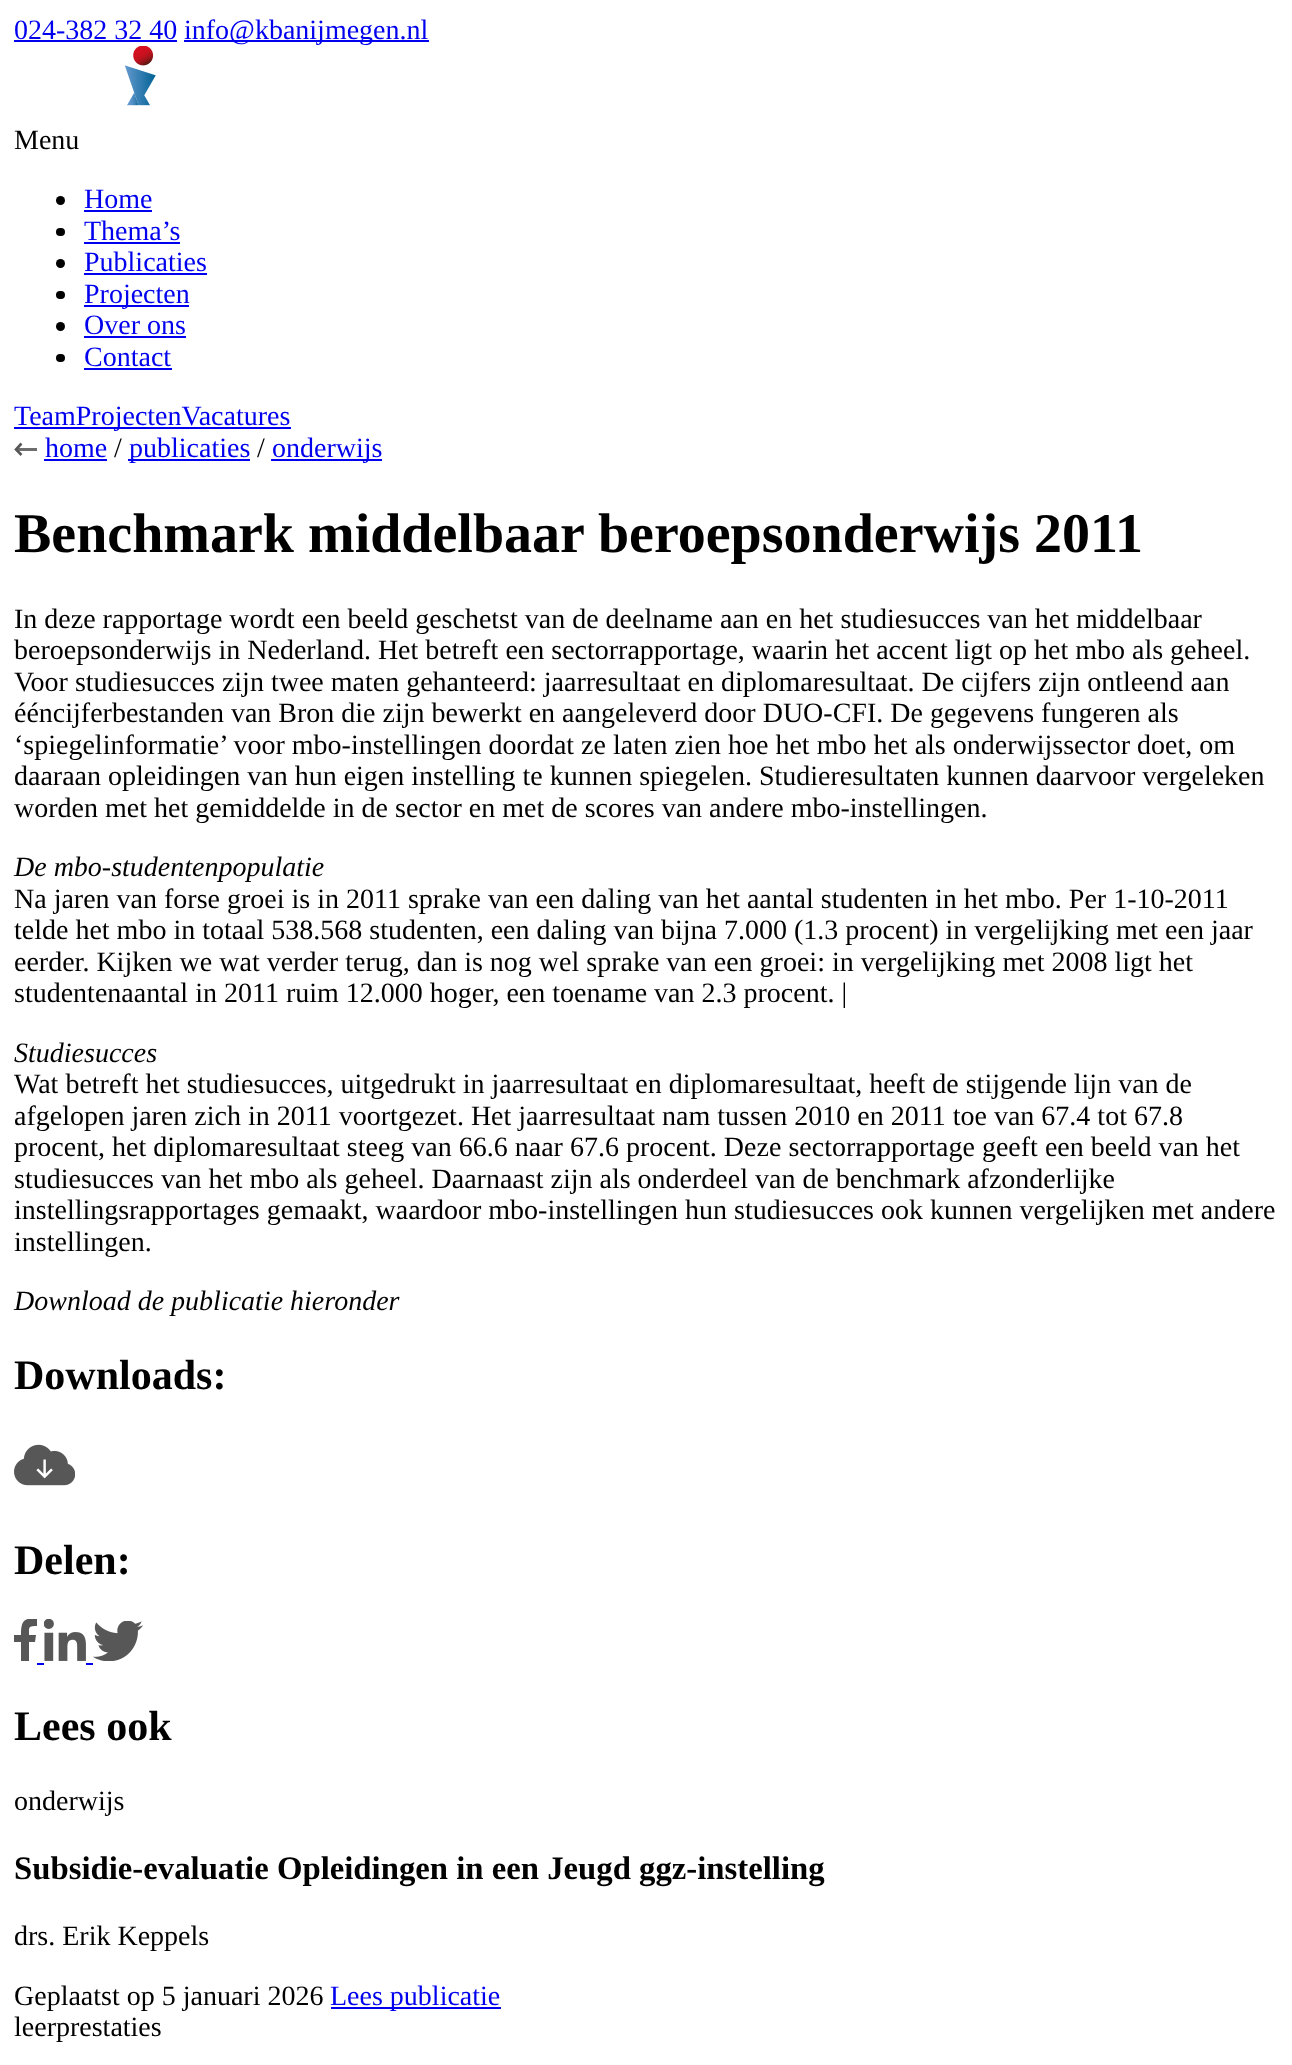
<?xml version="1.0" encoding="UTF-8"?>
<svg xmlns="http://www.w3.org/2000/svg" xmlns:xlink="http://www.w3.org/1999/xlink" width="1292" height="2065">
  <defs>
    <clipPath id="clip1"><rect x="14" y="1619" width="23" height="42" /></clipPath>
  </defs>
  <rect width="100%" height="100%" fill="#ffffff" />
  <rect x="14" y="40" width="163" height="2" fill="#0000ee" />
  <rect x="184" y="40" width="245" height="2" fill="#0000ee" />
  <image x="124" y="46" width="32" height="60" xlink:href="image1.png" />
  <circle cx="60.5" cy="200.5" r="4.5" fill="#000000" />
  <rect x="84" y="210" width="68" height="2" fill="#0000ee" />
  <rect x="56" y="228" width="9" height="8" rx="4" fill="#000000" />
  <rect x="84" y="242" width="96" height="2" fill="#0000ee" />
  <circle cx="60.5" cy="263.5" r="4.5" fill="#000000" />
  <rect x="84" y="273" width="123" height="2" fill="#0000ee" />
  <rect x="56" y="291" width="9" height="8" rx="4" fill="#000000" />
  <rect x="84" y="305" width="105" height="2" fill="#0000ee" />
  <circle cx="60.5" cy="326.5" r="4.5" fill="#000000" />
  <rect x="84" y="336" width="102" height="2" fill="#0000ee" />
  <rect x="56" y="354" width="9" height="8" rx="4" fill="#000000" />
  <rect x="84" y="368" width="88" height="2" fill="#0000ee" />
  <rect x="14" y="427" width="277" height="2" fill="#0000ee" />
  <path d="M 21.5 455 l -5.5 -5.5 l 5.5 -6" fill="none" stroke="#575757" stroke-width="2.6" />
  <rect x="44" y="459" width="63" height="2" fill="#0000ee" />
  <rect x="128" y="459" width="122" height="2" fill="#0000ee" />
  <rect x="271" y="459" width="111" height="2" fill="#0000ee" />
  <rect x="16" y="448" width="21" height="3" fill="#575757" fill-opacity="0.87" />
  <image x="14" y="1444" width="61" height="42" xlink:href="image2.png" />
  <g clip-path="url(#clip1)">
    <path d="M 35 1642 l 1 -7 h -7 c 0 -8 -1 -9 8 -9 v -7 c -14 -2 -16 3 -16 16 h -7 v 7 h 7 v 19 h 8 v -19 z" fill="#575757" />
  </g>
  <image x="44" y="1619" width="42" height="42" xlink:href="image3.png" />
  <image x="93" y="1621" width="50" height="40" xlink:href="image4.png" />
  <rect x="37" y="1663" width="7" height="2" fill="#0000ee" />
  <rect x="86" y="1663" width="7" height="2" fill="#0000ee" />
  <rect x="331" y="2007" width="170" height="2" fill="#0000ee" />
  <text x="14" y="39" style="font-family: Liberation Serif; font-size: 28px; fill: #0000ee">024-382 32 40</text>
  <text x="184" y="39" style="font-family: Liberation Serif; font-size: 28px; fill: #0000ee">info@kbanijmegen.nl</text>
  <text x="14" y="149" style="font-family: Liberation Serif; font-size: 28px; fill: #000000">Menu</text>
  <text x="84" y="208" style="font-family: Liberation Serif; font-size: 28px; fill: #0000ee">Home</text>
  <text x="84" y="240" style="font-family: Liberation Serif; font-size: 28px; fill: #0000ee">Thema’s</text>
  <text x="84" y="271" style="font-family: Liberation Serif; font-size: 28px; fill: #0000ee">Publicaties</text>
  <text x="84" y="303" style="font-family: Liberation Serif; font-size: 28px; fill: #0000ee">Projecten</text>
  <text x="84" y="334" style="font-family: Liberation Serif; font-size: 28px; fill: #0000ee">Over ons</text>
  <text x="84" y="366" style="font-family: Liberation Serif; font-size: 28px; fill: #0000ee">Contact</text>
  <text x="14" y="425" style="font-family: Liberation Serif; font-size: 28px; fill: #0000ee">TeamProjectenVacatures</text>
  <text x="45" y="457" style="font-family: Liberation Serif; font-size: 28px; fill: #0000ee">home</text>
  <text x="114" y="457" style="font-family: Liberation Serif; font-size: 28px; fill: #000000">/</text>
  <text x="129" y="457" style="font-family: Liberation Serif; font-size: 28px; fill: #0000ee">publicaties</text>
  <text x="257" y="457" style="font-family: Liberation Serif; font-size: 28px; fill: #000000">/</text>
  <text x="272" y="457" style="font-family: Liberation Serif; font-size: 28px; fill: #0000ee">onderwijs</text>
  <text x="14" y="552" style="font-family: Liberation Serif; font-size: 56px; font-weight: bold; fill: #000000">Benchmark middelbaar beroepsonderwijs 2011</text>
  <text x="14" y="628" style="font-family: Liberation Serif; font-size: 28px; fill: #000000">In deze rapportage wordt een beeld geschetst van de deelname aan en het studiesucces van het middelbaar</text>
  <text x="14" y="659" style="font-family: Liberation Serif; font-size: 28px; fill: #000000">beroepsonderwijs in Nederland. Het betreft een sectorrapportage, waarin het accent ligt op het mbo als geheel.</text>
  <text x="14" y="691" style="font-family: Liberation Serif; font-size: 28px; fill: #000000">Voor studiesucces zijn twee maten gehanteerd: jaarresultaat en diplomaresultaat. De cijfers zijn ontleend aan</text>
  <text x="14" y="722" style="font-family: Liberation Serif; font-size: 28px; fill: #000000">ééncijferbestanden van Bron die zijn bewerkt en aangeleverd door DUO-CFI. De gegevens fungeren als</text>
  <text x="14" y="754" style="font-family: Liberation Serif; font-size: 28px; fill: #000000">‘spiegelinformatie’ voor mbo-instellingen doordat ze laten zien hoe het mbo het als onderwijssector doet, om</text>
  <text x="14" y="785" style="font-family: Liberation Serif; font-size: 28px; fill: #000000">daaraan opleidingen van hun eigen instelling te kunnen spiegelen. Studieresultaten kunnen daarvoor vergeleken</text>
  <text x="14" y="817" style="font-family: Liberation Serif; font-size: 28px; fill: #000000">worden met het gemiddelde in de sector en met de scores van andere mbo-instellingen.</text>
  <text x="14" y="876" style="font-family: Liberation Serif; font-size: 28px; font-style: italic; fill: #000000">De mbo-studentenpopulatie</text>
  <text x="14" y="908" style="font-family: Liberation Serif; font-size: 28px; fill: #000000">Na jaren van forse groei is in 2011 sprake van een daling van het aantal studenten in het mbo. Per 1-10-2011</text>
  <text x="14" y="939" style="font-family: Liberation Serif; font-size: 28px; fill: #000000">telde het mbo in totaal 538.568 studenten, een daling van bijna 7.000 (1.3 procent) in vergelijking met een jaar</text>
  <text x="14" y="971" style="font-family: Liberation Serif; font-size: 28px; fill: #000000">eerder. Kijken we wat verder terug, dan is nog wel sprake van een groei: in vergelijking met 2008 ligt het</text>
  <text x="14" y="1002" style="font-family: Liberation Serif; font-size: 28px; fill: #000000">studentenaantal in 2011 ruim 12.000 hoger, een toename van 2.3 procent. |</text>
  <text x="14" y="1062" style="font-family: Liberation Serif; font-size: 28px; font-style: italic; fill: #000000">Studiesucces</text>
  <text x="14" y="1093" style="font-family: Liberation Serif; font-size: 28px; fill: #000000">Wat betreft het studiesucces, uitgedrukt in jaarresultaat en diplomaresultaat, heeft de stijgende lijn van de</text>
  <text x="14" y="1125" style="font-family: Liberation Serif; font-size: 28px; fill: #000000">afgelopen jaren zich in 2011 voortgezet. Het jaarresultaat nam tussen 2010 en 2011 toe van 67.4 tot 67.8</text>
  <text x="14" y="1156" style="font-family: Liberation Serif; font-size: 28px; fill: #000000">procent, het diplomaresultaat steeg van 66.6 naar 67.6 procent. Deze sectorrapportage geeft een beeld van het</text>
  <text x="14" y="1188" style="font-family: Liberation Serif; font-size: 28px; fill: #000000">studiesucces van het mbo als geheel. Daarnaast zijn als onderdeel van de benchmark afzonderlijke</text>
  <text x="14" y="1219" style="font-family: Liberation Serif; font-size: 28px; fill: #000000">instellingsrapportages gemaakt, waardoor mbo-instellingen hun studiesucces ook kunnen vergelijken met andere</text>
  <text x="14" y="1251" style="font-family: Liberation Serif; font-size: 28px; fill: #000000">instellingen.</text>
  <text x="14" y="1310" style="font-family: Liberation Serif; font-size: 28px; font-style: italic; fill: #000000">Download de publicatie hieronder</text>
  <text x="14" y="1389" style="font-family: Liberation Serif; font-size: 42px; font-weight: bold; fill: #000000">Downloads:</text>
  <text x="14" y="1574" style="font-family: Liberation Serif; font-size: 42px; font-weight: bold; fill: #000000">Delen:</text>
  <text x="14" y="1740" style="font-family: Liberation Serif; font-size: 42px; font-weight: bold; fill: #000000">Lees ook</text>
  <text x="14" y="1810" style="font-family: Liberation Serif; font-size: 28px; fill: #000000">onderwijs</text>
  <text x="14" y="1879" style="font-family: Liberation Serif; font-size: 32.75px; font-weight: bold; fill: #000000">Subsidie-evaluatie Opleidingen in een Jeugd ggz-instelling</text>
  <text x="14" y="1945" style="font-family: Liberation Serif; font-size: 28px; fill: #000000">drs. Erik Keppels</text>
  <text x="14" y="2005" style="font-family: Liberation Serif; font-size: 28px; fill: #000000">Geplaatst op 5 januari 2026</text>
  <text x="330" y="2005" style="font-family: Liberation Serif; font-size: 28px; fill: #0000ee">Lees publicatie</text>
  <text x="14" y="2036" style="font-family: Liberation Serif; font-size: 28px; fill: #000000">leerprestaties</text>
</svg>
